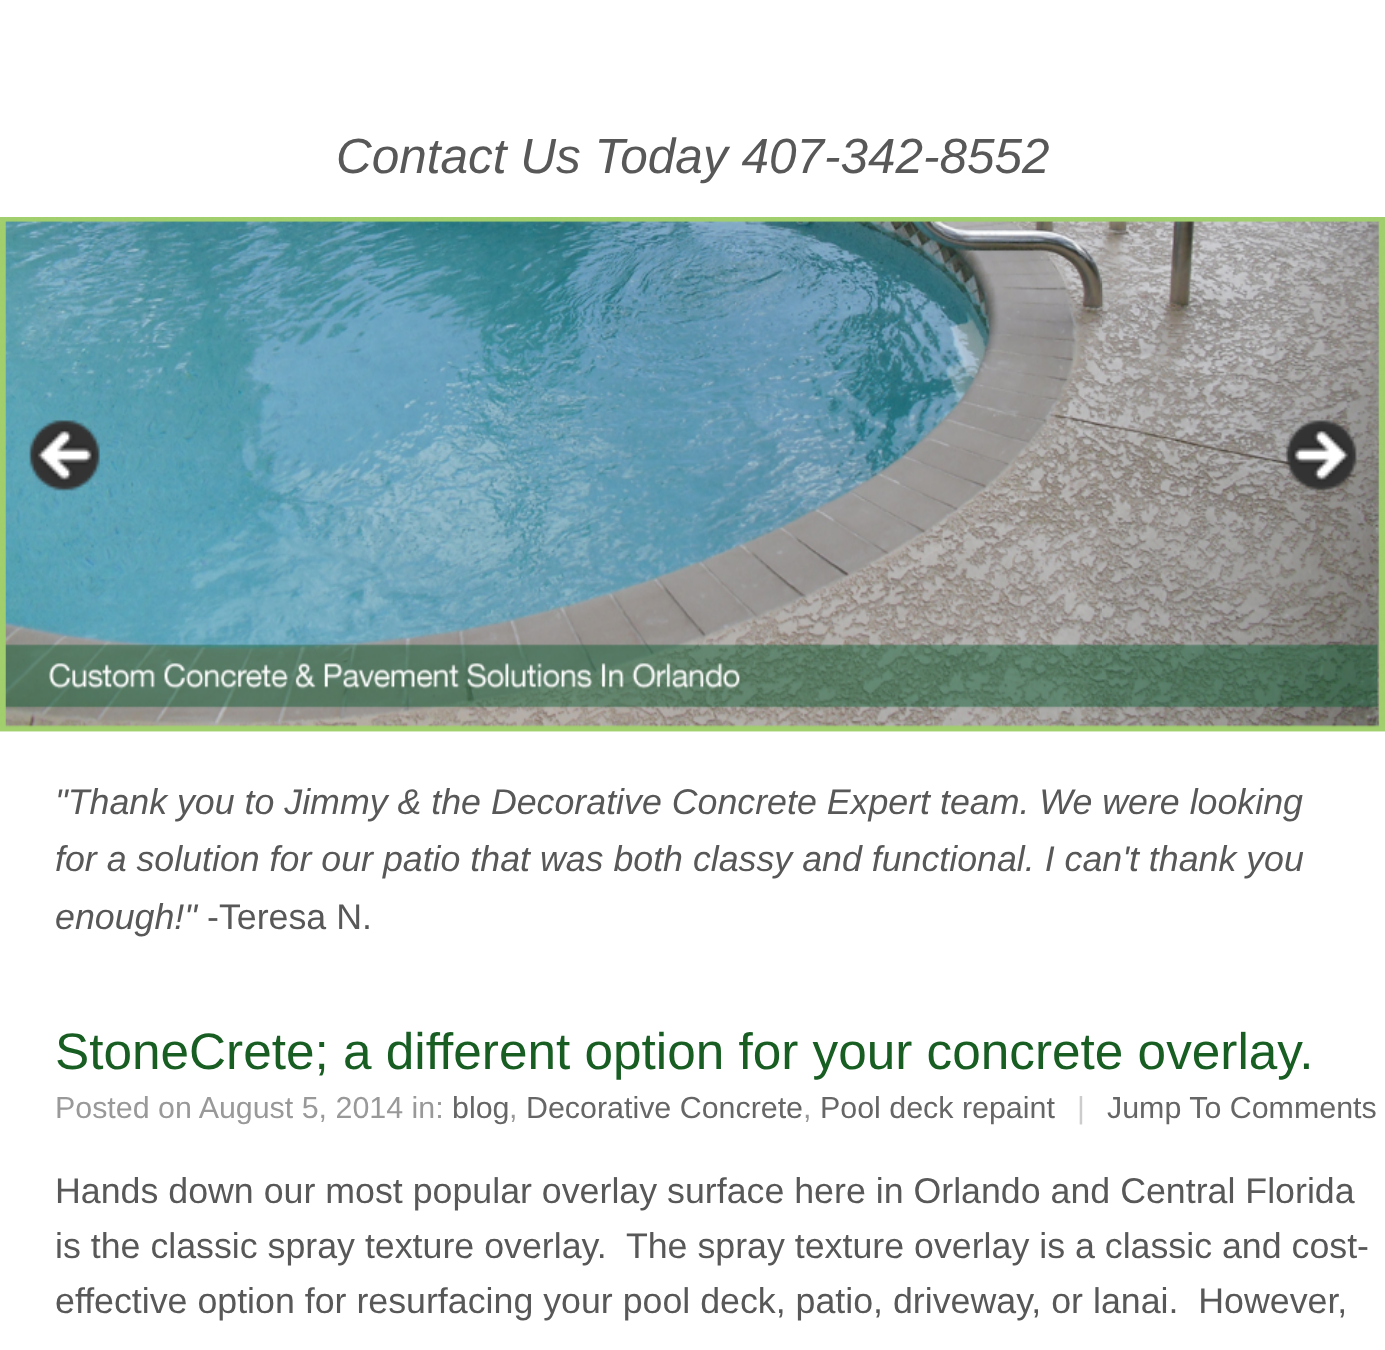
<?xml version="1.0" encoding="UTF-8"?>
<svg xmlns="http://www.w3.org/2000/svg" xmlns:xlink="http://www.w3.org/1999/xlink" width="1385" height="1350">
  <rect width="100%" height="100%" fill="#ffffff" />
  <image x="0" y="217" width="1385" height="515" xlink:href="image1.png" />
  <image x="29" y="420" width="71" height="71" xlink:href="image2.png" />
  <image x="1286" y="420" width="71" height="71" xlink:href="image3.png" />
  <text x="336" y="173" style="font-family: Liberation Sans; font-size: 49.5px; font-style: italic; fill: #585858">Contact Us Today 407-342-8552</text>
  <text x="55" y="814" style="font-family: Liberation Sans; font-size: 35.75px; font-style: italic; fill: #585858">"Thank you to Jimmy &amp; the Decorative Concrete Expert team. We were looking</text>
  <text x="55" y="871" style="font-family: Liberation Sans; font-size: 35.75px; font-style: italic; fill: #585858">for a solution for our patio that was both classy and functional. I can't thank you</text>
  <text x="55" y="929" style="font-family: Liberation Sans; font-size: 35.75px; font-style: italic; fill: #585858">enough!"</text>
  <text x="207" y="929" style="font-family: Liberation Sans; font-size: 35.75px; fill: #585858">-Teresa N.</text>
  <text x="55" y="1069" style="font-family: Liberation Sans; font-size: 51.3px; fill: #185e23">StoneCrete; a different option for your concrete overlay.</text>
  <text x="55" y="1118" style="font-family: Liberation Sans; font-size: 30.4px; fill: #999999">Posted on August 5, 2014 in:</text>
  <text x="452" y="1118" style="font-family: Liberation Sans; font-size: 30.4px; fill: #666666">blog</text>
  <text x="509" y="1118" style="font-family: Liberation Sans; font-size: 30.4px; fill: #999999">,</text>
  <text x="526" y="1118" style="font-family: Liberation Sans; font-size: 30.4px; fill: #666666">Decorative Concrete</text>
  <text x="803" y="1118" style="font-family: Liberation Sans; font-size: 30.4px; fill: #999999">,</text>
  <text x="820" y="1118" style="font-family: Liberation Sans; font-size: 30.4px; fill: #666666">Pool deck repaint</text>
  <text x="1077" y="1118" style="font-family: Liberation Sans; font-size: 30.4px; fill: #cccccc">|</text>
  <text x="1107" y="1118" style="font-family: Liberation Sans; font-size: 30.4px; fill: #666666">Jump To Comments</text>
  <text x="55" y="1203" style="font-family: Liberation Sans; font-size: 35.75px; fill: #585858">Hands down our most popular overlay surface here in Orlando and Central Florida</text>
  <text x="55" y="1258" style="font-family: Liberation Sans; font-size: 35.75px; fill: #585858" xml:space="preserve">is the classic spray texture overlay.  The spray texture overlay is a classic and cost-</text>
  <text x="55" y="1313" style="font-family: Liberation Sans; font-size: 35.75px; fill: #585858" xml:space="preserve">effective option for resurfacing your pool deck, patio, driveway, or lanai.  However,</text>
</svg>
